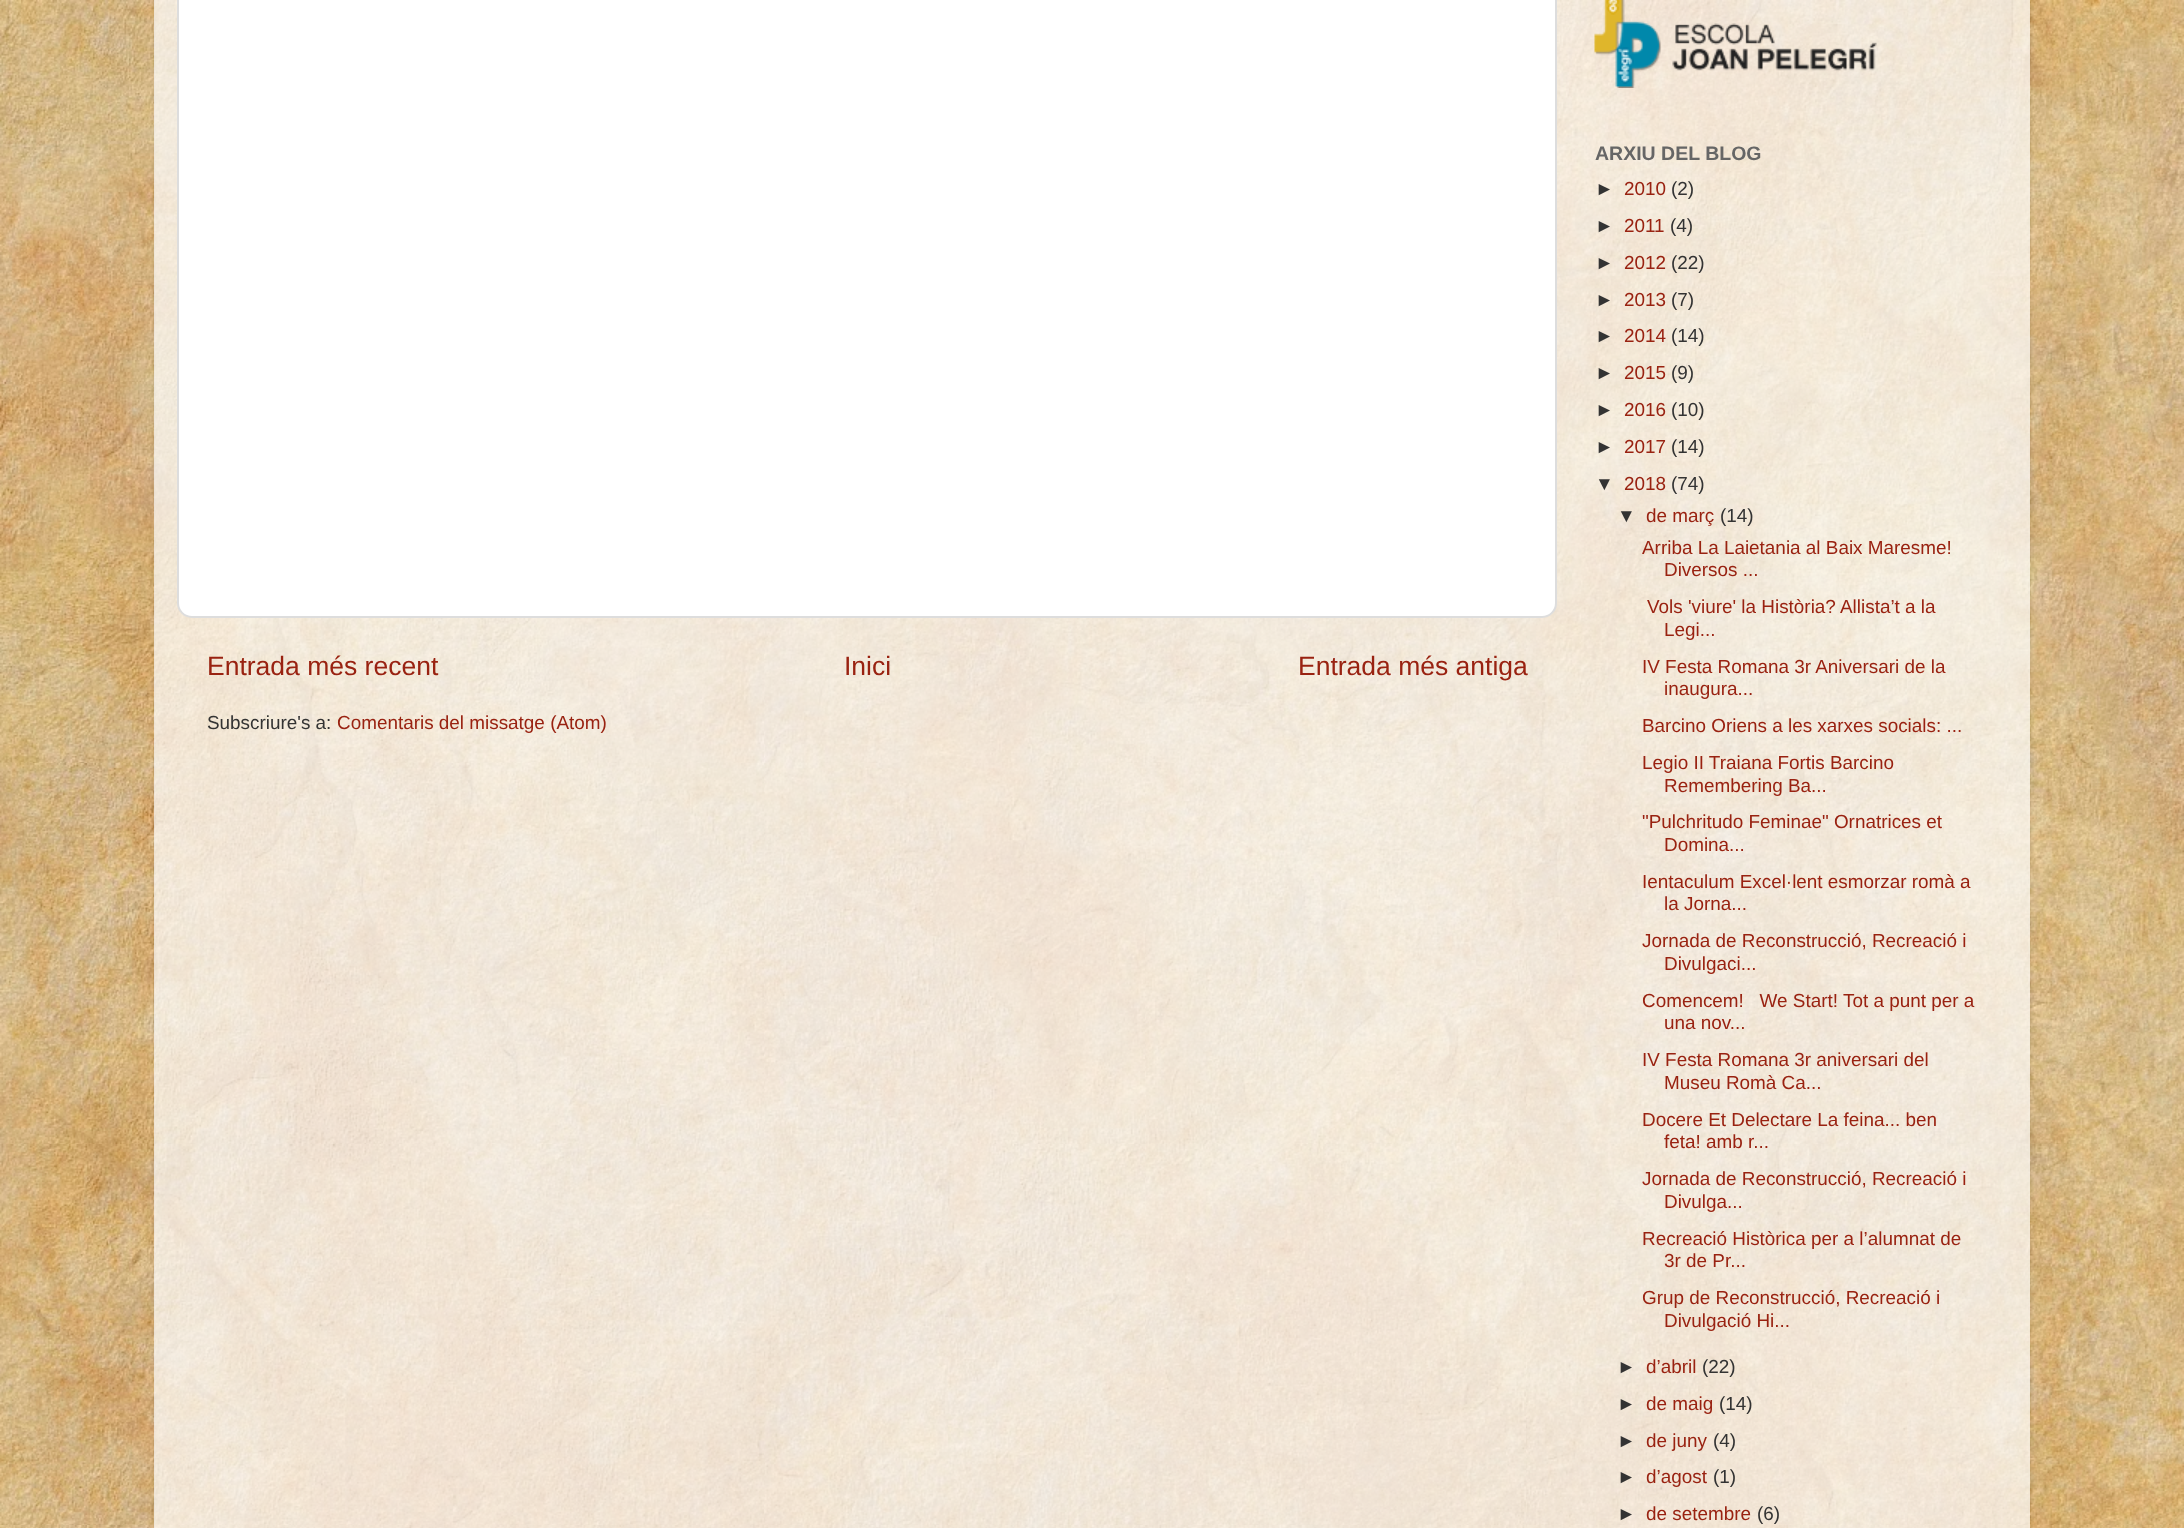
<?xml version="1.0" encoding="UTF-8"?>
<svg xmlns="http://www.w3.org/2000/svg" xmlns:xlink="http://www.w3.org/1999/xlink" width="2184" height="1528">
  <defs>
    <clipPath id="clip1"><path d="M 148 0 h 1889 v 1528 h -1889 z m 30 -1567 h 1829 c 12.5 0 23 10.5 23 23 v 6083 c 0 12.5 -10.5 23 -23 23 h -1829 c -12.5 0 -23 -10.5 -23 -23 v -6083 c 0 -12.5 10.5 -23 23 -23 z" clip-rule="evenodd" /></clipPath>
  </defs>
  <rect width="100%" height="100%" fill="#ffffff" />
  <image x="0" y="0" width="2184" height="1528" xlink:href="image1.png" />
  <g clip-path="url(#clip1)">
    <rect x="155" y="-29" width="1875" height="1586" rx="23" fill="#000000" fill-opacity="0.15" filter="blur(2px)" />
  </g>
  <rect x="154" width="1876" height="1528" fill="#ffffff" fill-opacity="0.7" />
  <rect x="178" y="-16" width="1378" height="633" rx="14" fill="#ffffff" stroke="#dddddd" stroke-width="2" />
  <image x="1594" y="0" width="283" height="88" xlink:href="image2.png" />
  <text x="207" y="675" style="font-family: Liberation Sans; font-size: 26.5px; fill: #992211">Entrada més recent</text>
  <text x="844" y="675" style="font-family: Liberation Sans; font-size: 26.5px; fill: #992211">Inici</text>
  <text x="1298" y="675" style="font-family: Liberation Sans; font-size: 26.5px; fill: #992211">Entrada més antiga</text>
  <text x="207" y="729" style="font-family: Liberation Sans; font-size: 18.9px; fill: #333333">Subscriure's a:</text>
  <text x="337" y="729" style="font-family: Liberation Sans; font-size: 18.9px; fill: #992211">Comentaris del missatge (Atom)</text>
  <text x="1595" y="160" style="font-family: Liberation Sans; font-size: 19.5px; font-weight: bold; fill: #666666">ARXIU DEL BLOG</text>
  <text x="1595" y="195" style="font-family: Liberation Sans; font-size: 18.9px; fill: #333333">►</text>
  <text x="1624" y="195" style="font-family: Liberation Sans; font-size: 18.9px; fill: #992211">2010</text>
  <text x="1671" y="195" style="font-family: Liberation Sans; font-size: 18.9px; fill: #333333">(2)</text>
  <text x="1595" y="232" style="font-family: Liberation Sans; font-size: 18.9px; fill: #333333">►</text>
  <text x="1624" y="232" style="font-family: Liberation Sans; font-size: 18.9px; fill: #992211">2011</text>
  <text x="1670" y="232" style="font-family: Liberation Sans; font-size: 18.9px; fill: #333333">(4)</text>
  <text x="1595" y="269" style="font-family: Liberation Sans; font-size: 18.9px; fill: #333333">►</text>
  <text x="1624" y="269" style="font-family: Liberation Sans; font-size: 18.9px; fill: #992211">2012</text>
  <text x="1671" y="269" style="font-family: Liberation Sans; font-size: 18.9px; fill: #333333">(22)</text>
  <text x="1595" y="306" style="font-family: Liberation Sans; font-size: 18.9px; fill: #333333">►</text>
  <text x="1624" y="306" style="font-family: Liberation Sans; font-size: 18.9px; fill: #992211">2013</text>
  <text x="1671" y="306" style="font-family: Liberation Sans; font-size: 18.9px; fill: #333333">(7)</text>
  <text x="1595" y="342" style="font-family: Liberation Sans; font-size: 18.9px; fill: #333333">►</text>
  <text x="1624" y="342" style="font-family: Liberation Sans; font-size: 18.9px; fill: #992211">2014</text>
  <text x="1671" y="342" style="font-family: Liberation Sans; font-size: 18.9px; fill: #333333">(14)</text>
  <text x="1595" y="379" style="font-family: Liberation Sans; font-size: 18.9px; fill: #333333">►</text>
  <text x="1624" y="379" style="font-family: Liberation Sans; font-size: 18.9px; fill: #992211">2015</text>
  <text x="1671" y="379" style="font-family: Liberation Sans; font-size: 18.9px; fill: #333333">(9)</text>
  <text x="1595" y="416" style="font-family: Liberation Sans; font-size: 18.9px; fill: #333333">►</text>
  <text x="1624" y="416" style="font-family: Liberation Sans; font-size: 18.9px; fill: #992211">2016</text>
  <text x="1671" y="416" style="font-family: Liberation Sans; font-size: 18.9px; fill: #333333">(10)</text>
  <text x="1595" y="453" style="font-family: Liberation Sans; font-size: 18.9px; fill: #333333">►</text>
  <text x="1624" y="453" style="font-family: Liberation Sans; font-size: 18.9px; fill: #992211">2017</text>
  <text x="1671" y="453" style="font-family: Liberation Sans; font-size: 18.9px; fill: #333333">(14)</text>
  <text x="1595" y="490" style="font-family: Liberation Sans; font-size: 18.9px; fill: #333333">▼</text>
  <text x="1624" y="490" style="font-family: Liberation Sans; font-size: 18.9px; fill: #992211">2018</text>
  <text x="1671" y="490" style="font-family: Liberation Sans; font-size: 18.9px; fill: #333333">(74)</text>
  <text x="1617" y="522" style="font-family: Liberation Sans; font-size: 18.9px; fill: #333333">▼</text>
  <text x="1646" y="522" style="font-family: Liberation Sans; font-size: 18.9px; fill: #992211">de març</text>
  <text x="1720" y="522" style="font-family: Liberation Sans; font-size: 18.9px; fill: #333333">(14)</text>
  <text x="1642" y="554" style="font-family: Liberation Sans; font-size: 18.9px; fill: #992211">Arriba La Laietania al Baix Maresme!</text>
  <text x="1664" y="576" style="font-family: Liberation Sans; font-size: 18.9px; fill: #992211">Diversos ...</text>
  <text x="1647" y="613" style="font-family: Liberation Sans; font-size: 18.9px; fill: #992211">Vols 'viure' la Història?</text>
  <text x="1840" y="613" style="font-family: Liberation Sans; font-size: 18.9px; fill: #992211">Allista’t a la</text>
  <text x="1664" y="636" style="font-family: Liberation Sans; font-size: 18.9px; fill: #992211">Legi...</text>
  <text x="1642" y="673" style="font-family: Liberation Sans; font-size: 18.9px; fill: #992211">IV Festa Romana 3r Aniversari de la</text>
  <text x="1664" y="695" style="font-family: Liberation Sans; font-size: 18.9px; fill: #992211">inaugura...</text>
  <text x="1642" y="732" style="font-family: Liberation Sans; font-size: 18.9px; fill: #992211">Barcino Oriens a les xarxes socials: ...</text>
  <text x="1642" y="769" style="font-family: Liberation Sans; font-size: 18.9px; fill: #992211">Legio II Traiana Fortis Barcino</text>
  <text x="1664" y="792" style="font-family: Liberation Sans; font-size: 18.9px; fill: #992211">Remembering Ba...</text>
  <text x="1642" y="828" style="font-family: Liberation Sans; font-size: 18.9px; fill: #992211">"Pulchritudo Feminae" Ornatrices et</text>
  <text x="1664" y="851" style="font-family: Liberation Sans; font-size: 18.9px; fill: #992211">Domina...</text>
  <text x="1642" y="888" style="font-family: Liberation Sans; font-size: 18.9px; fill: #992211">Ientaculum Excel·lent esmorzar romà a</text>
  <text x="1664" y="910" style="font-family: Liberation Sans; font-size: 18.9px; fill: #992211">la Jorna...</text>
  <text x="1642" y="947" style="font-family: Liberation Sans; font-size: 18.9px; fill: #992211">Jornada de Reconstrucció, Recreació i</text>
  <text x="1664" y="970" style="font-family: Liberation Sans; font-size: 18.9px; fill: #992211">Divulgaci...</text>
  <text x="1642" y="1007" style="font-family: Liberation Sans; font-size: 18.9px; fill: #992211" xml:space="preserve">Comencem!   We Start!</text>
  <text x="1843" y="1007" style="font-family: Liberation Sans; font-size: 18.9px; fill: #992211">Tot a punt per a</text>
  <text x="1664" y="1029" style="font-family: Liberation Sans; font-size: 18.9px; fill: #992211">una nov...</text>
  <text x="1642" y="1066" style="font-family: Liberation Sans; font-size: 18.9px; fill: #992211">IV Festa Romana 3r aniversari del</text>
  <text x="1664" y="1089" style="font-family: Liberation Sans; font-size: 18.9px; fill: #992211">Museu Romà Ca...</text>
  <text x="1642" y="1126" style="font-family: Liberation Sans; font-size: 18.9px; fill: #992211">Docere Et Delectare La feina... ben</text>
  <text x="1664" y="1148" style="font-family: Liberation Sans; font-size: 18.9px; fill: #992211">feta! amb r...</text>
  <text x="1642" y="1185" style="font-family: Liberation Sans; font-size: 18.9px; fill: #992211">Jornada de Reconstrucció, Recreació i</text>
  <text x="1664" y="1208" style="font-family: Liberation Sans; font-size: 18.9px; fill: #992211">Divulga...</text>
  <text x="1642" y="1245" style="font-family: Liberation Sans; font-size: 18.9px; fill: #992211">Recreació Històrica per a l’alumnat de</text>
  <text x="1664" y="1267" style="font-family: Liberation Sans; font-size: 18.9px; fill: #992211">3r de Pr...</text>
  <text x="1642" y="1304" style="font-family: Liberation Sans; font-size: 18.9px; fill: #992211">Grup de Reconstrucció, Recreació i</text>
  <text x="1664" y="1327" style="font-family: Liberation Sans; font-size: 18.9px; fill: #992211">Divulgació Hi...</text>
  <text x="1617" y="1373" style="font-family: Liberation Sans; font-size: 18.9px; fill: #333333">►</text>
  <text x="1646" y="1373" style="font-family: Liberation Sans; font-size: 18.9px; fill: #992211">d’abril</text>
  <text x="1702" y="1373" style="font-family: Liberation Sans; font-size: 18.9px; fill: #333333">(22)</text>
  <text x="1617" y="1410" style="font-family: Liberation Sans; font-size: 18.9px; fill: #333333">►</text>
  <text x="1646" y="1410" style="font-family: Liberation Sans; font-size: 18.9px; fill: #992211">de maig</text>
  <text x="1719" y="1410" style="font-family: Liberation Sans; font-size: 18.9px; fill: #333333">(14)</text>
  <text x="1617" y="1447" style="font-family: Liberation Sans; font-size: 18.9px; fill: #333333">►</text>
  <text x="1646" y="1447" style="font-family: Liberation Sans; font-size: 18.9px; fill: #992211">de juny</text>
  <text x="1713" y="1447" style="font-family: Liberation Sans; font-size: 18.9px; fill: #333333">(4)</text>
  <text x="1617" y="1483" style="font-family: Liberation Sans; font-size: 18.9px; fill: #333333">►</text>
  <text x="1646" y="1483" style="font-family: Liberation Sans; font-size: 18.9px; fill: #992211">d’agost</text>
  <text x="1713" y="1483" style="font-family: Liberation Sans; font-size: 18.9px; fill: #333333">(1)</text>
  <text x="1617" y="1520" style="font-family: Liberation Sans; font-size: 18.9px; fill: #333333">►</text>
  <text x="1646" y="1520" style="font-family: Liberation Sans; font-size: 18.9px; fill: #992211">de setembre</text>
  <text x="1757" y="1520" style="font-family: Liberation Sans; font-size: 18.9px; fill: #333333">(6)</text>
</svg>
